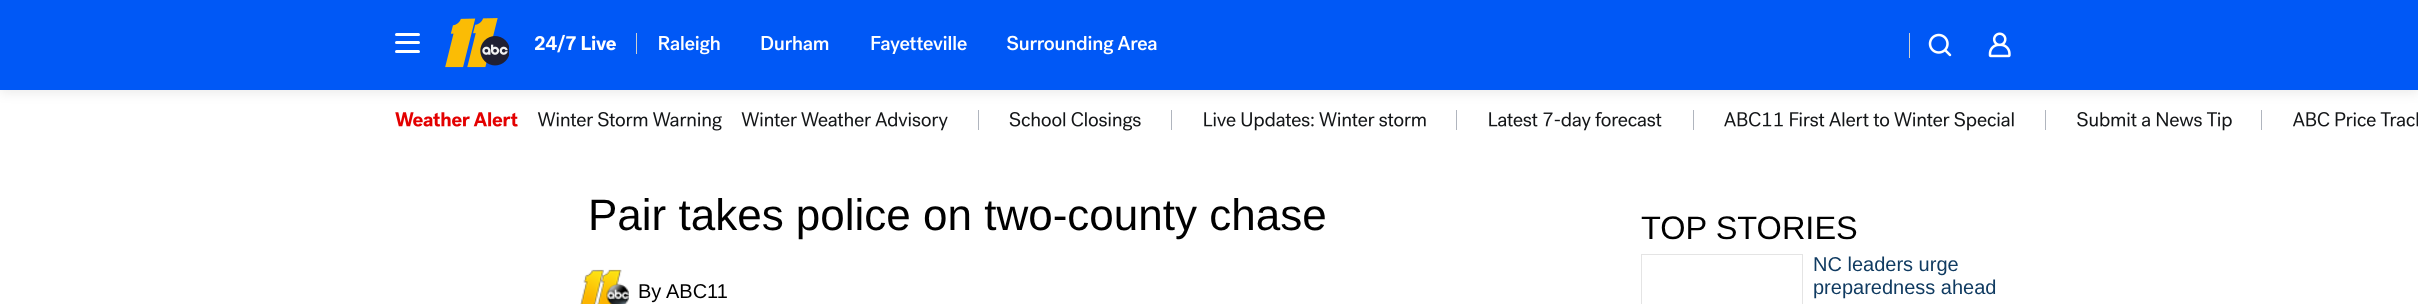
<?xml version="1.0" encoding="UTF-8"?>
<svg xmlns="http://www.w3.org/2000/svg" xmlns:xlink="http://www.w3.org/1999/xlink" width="2418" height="304">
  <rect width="100%" height="100%" fill="#ffffff" />
  <rect x="978" y="110" width="1" height="20" fill="#b0b5be" />
  <rect x="1171" y="110" width="1" height="20" fill="#b0b5be" />
  <rect x="1456" y="110" width="1" height="20" fill="#b0b5be" />
  <rect x="1693" y="110" width="1" height="20" fill="#b0b5be" />
  <rect x="2045" y="110" width="1" height="20" fill="#b0b5be" />
  <rect x="2261" y="110" width="1" height="20" fill="#b0b5be" />
  <rect y="3" width="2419" height="90" fill="#000000" fill-opacity="0.08" filter="blur(6px)" />
  <rect width="2418" height="90" fill="#0058f6" />
  <rect x="395" y="41" width="25" height="3" rx="1.5" fill="#ffffff" />
  <rect x="395" y="33" width="25" height="3" rx="1.5" fill="#ffffff" />
  <rect x="395" y="50" width="25" height="3" rx="1.5" fill="#ffffff" />
  <image x="445" y="18" width="64" height="50" xlink:href="image1.png" />
  <image x="534" y="34" width="82" height="19" xlink:href="image2.png" />
  <rect x="636" y="33" width="1" height="21" fill="#cecfcf" />
  <image x="659" y="35" width="61" height="20" xlink:href="image3.png" />
  <image x="761" y="36" width="68" height="15" xlink:href="image4.png" />
  <image x="871" y="35" width="96" height="19" xlink:href="image5.png" />
  <image x="1007" y="35" width="150" height="20" xlink:href="image6.png" />
  <rect x="1909" y="33" width="1" height="25" fill="#cecfcf" />
  <image x="1928" y="33" width="24" height="24" xlink:href="image7.png" />
  <image x="1988" y="32" width="23" height="26" xlink:href="image8.png" />
  <image x="395" y="112" width="123" height="15" xlink:href="image9.png" />
  <image x="537" y="112" width="185" height="19" xlink:href="image10.png" />
  <image x="741" y="112" width="207" height="19" xlink:href="image11.png" />
  <image x="1009" y="112" width="132" height="19" xlink:href="image12.png" />
  <image x="1204" y="112" width="222" height="19" xlink:href="image13.png" />
  <image x="1489" y="112" width="173" height="19" xlink:href="image14.png" />
  <image x="1724" y="112" width="290" height="19" xlink:href="image15.png" />
  <image x="2077" y="112" width="155" height="19" xlink:href="image16.png" />
  <image x="2293" y="112" width="125" height="15" xlink:href="image17.png" />
  <image x="580" y="269" width="49" height="35" xlink:href="image18.png" />
  <rect x="1641.5" y="254.5" width="161" height="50" fill="none" stroke="#e4e4e4" />
  <text x="588" y="230" style="font-family: Liberation Sans; font-size: 44px; fill: #000000">Pair takes police on two-county chase</text>
  <text x="638" y="298" style="font-family: Liberation Sans; font-size: 20px; fill: #000000">By</text>
  <text x="666" y="298" style="font-family: Liberation Sans; font-size: 20px; fill: #000000">ABC11</text>
  <text x="1641" y="239" style="font-family: Liberation Sans; font-size: 32.5px; fill: #000000">TOP STORIES</text>
  <text x="1813" y="271" style="font-family: Liberation Sans; font-size: 20px; fill: #103b61">NC leaders urge</text>
  <text x="1813" y="294" style="font-family: Liberation Sans; font-size: 20px; fill: #103b61">preparedness ahead</text>
</svg>
